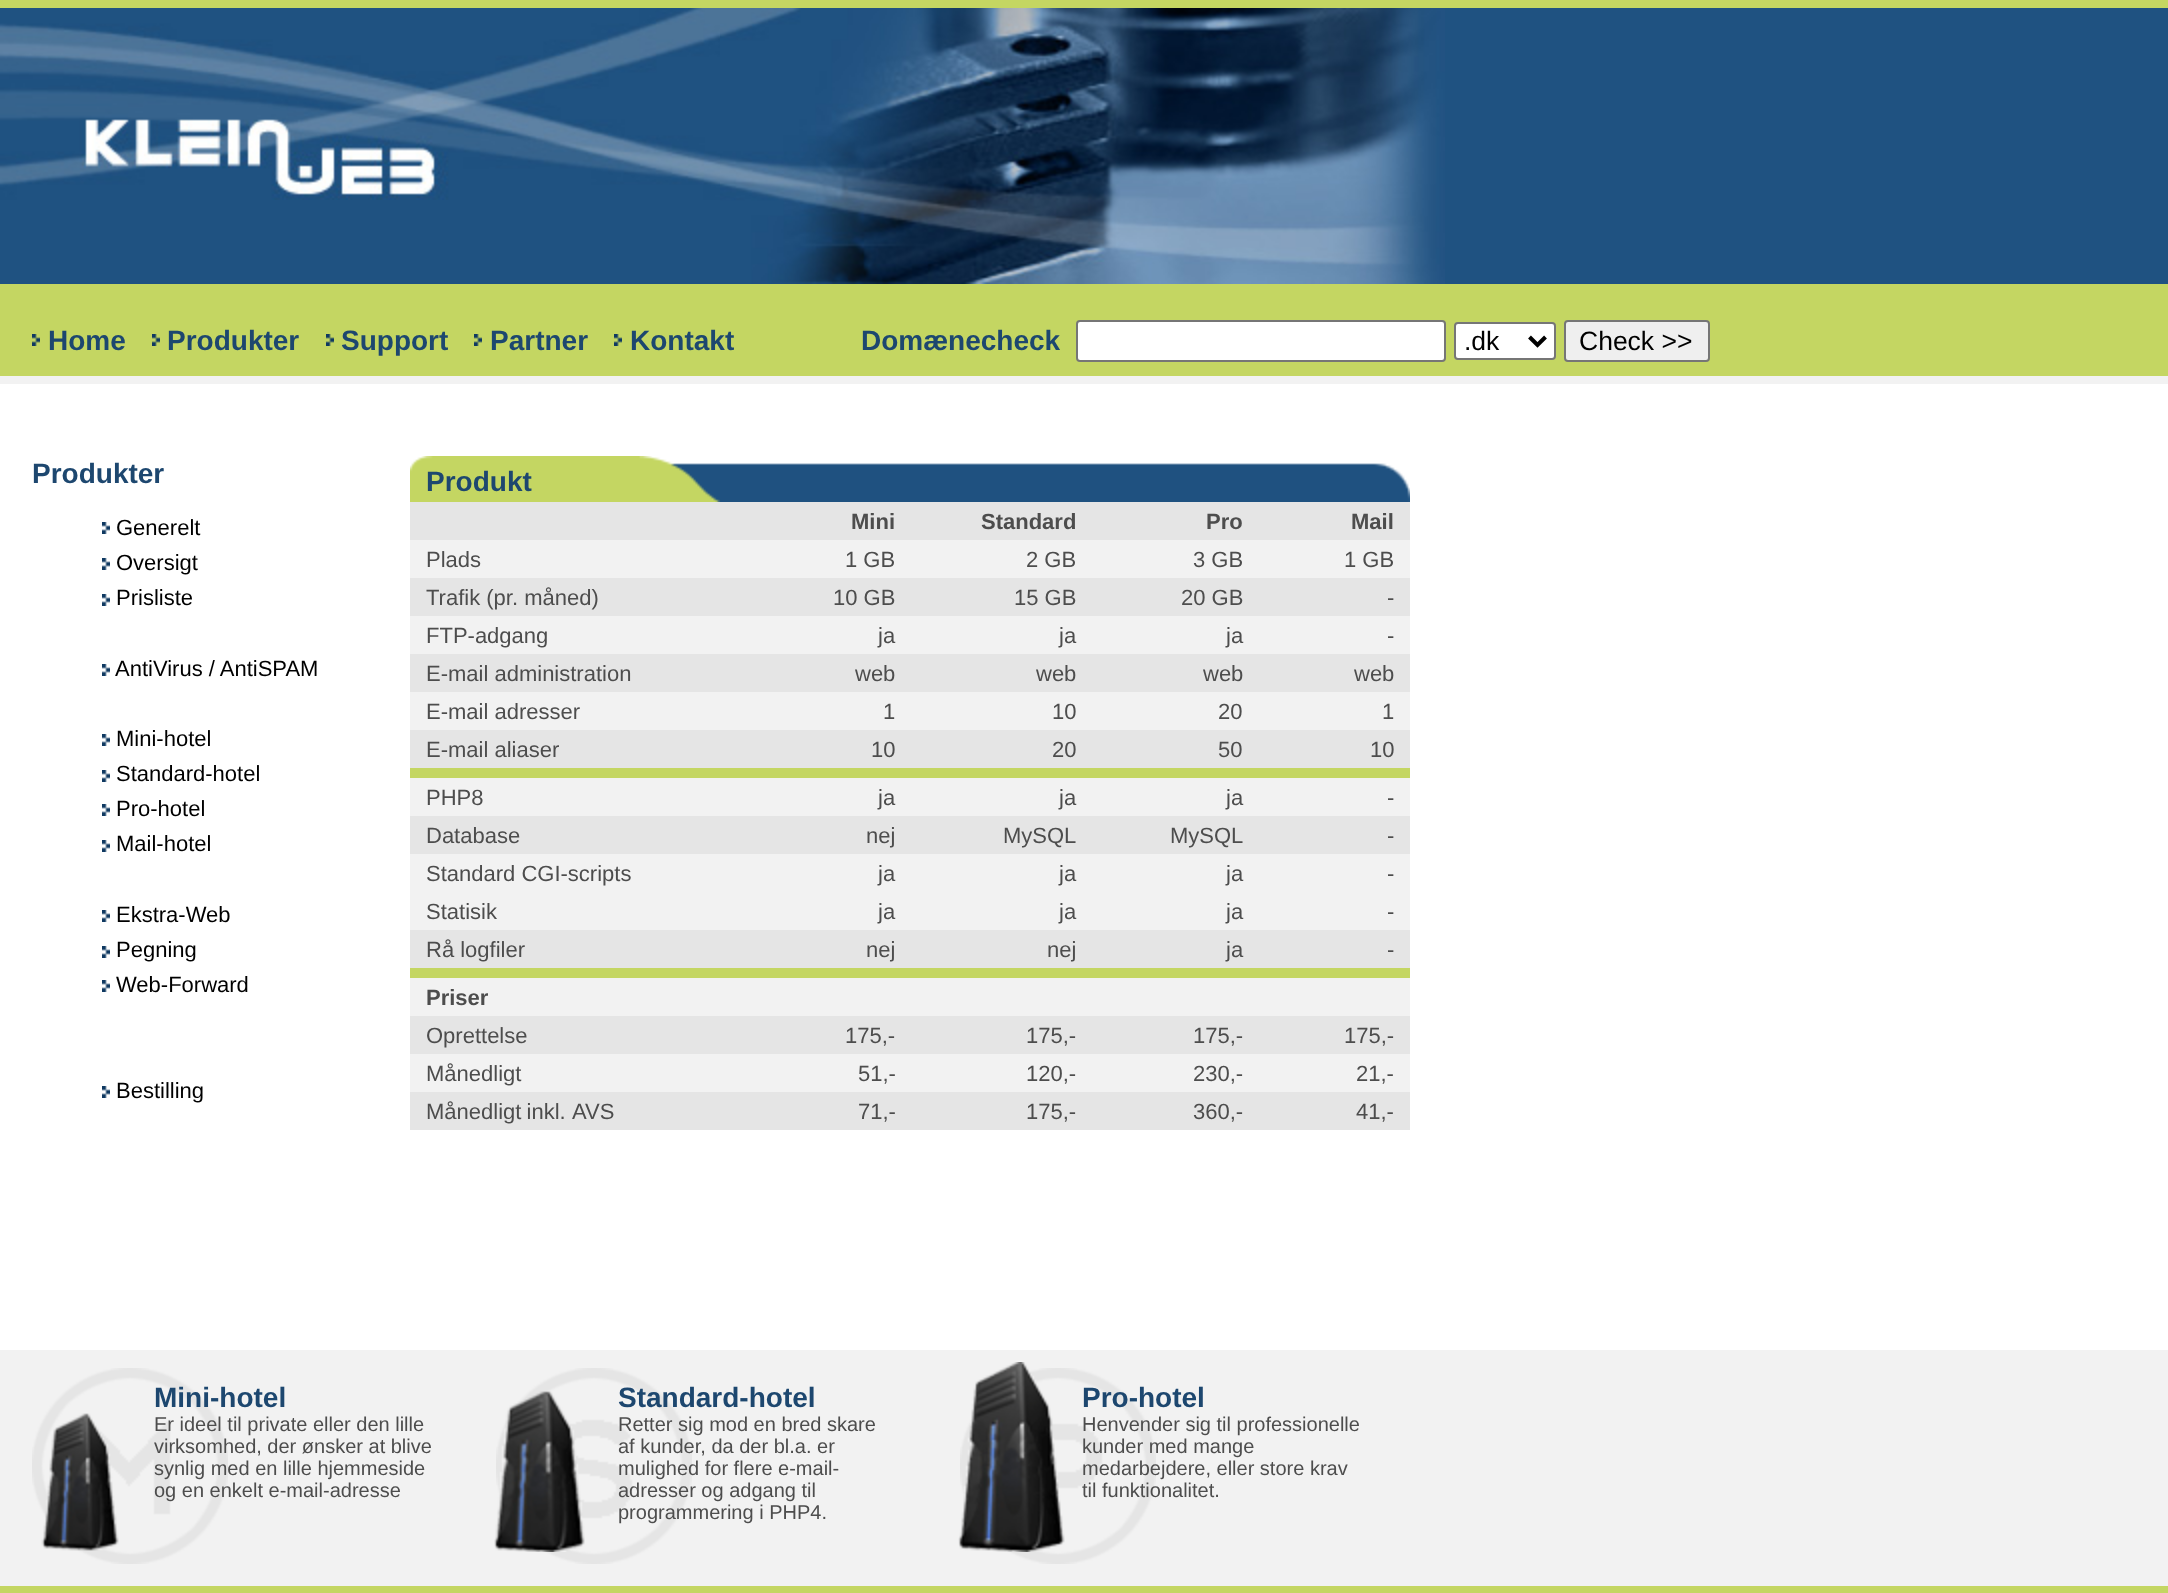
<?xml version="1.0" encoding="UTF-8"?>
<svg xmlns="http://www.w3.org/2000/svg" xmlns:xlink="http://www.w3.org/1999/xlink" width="2168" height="1593">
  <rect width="100%" height="100%" fill="#ffffff" />
  <rect width="2168" height="8" fill="#c4d662" />
  <rect y="1586" width="2168" height="7" fill="#c4d662" />
  <rect y="8" width="2168" height="276" fill="#1f5281" />
  <image x="0" y="8" width="720" height="192" xlink:href="image1.png" />
  <image x="720" y="8" width="725" height="276" xlink:href="image2.png" />
  <rect y="284" width="2168" height="92" fill="#c4d662" />
  <rect y="376" width="2168" height="8" fill="#f2f2f2" />
  <image x="32" y="334" width="8" height="12" xlink:href="image3.png" />
  <image x="152" y="334" width="8" height="12" xlink:href="image3.png" />
  <image x="326" y="334" width="8" height="12" xlink:href="image3.png" />
  <image x="474" y="334" width="8" height="12" xlink:href="image3.png" />
  <image x="614" y="334" width="8" height="12" xlink:href="image3.png" />
  <rect x="1077" y="321" width="368" height="40" rx="3" fill="#ffffff" stroke="#767676" stroke-width="2" />
  <rect x="1455" y="323" width="100" height="36" rx="3" fill="#ffffff" stroke="#767676" stroke-width="2" />
  <path d="M 1529.5 337 l 8 8 l 8 -8" fill="none" stroke="#000000" stroke-width="4" />
  <rect x="1565" y="321" width="144" height="40" rx="3" fill="#efefef" stroke="#767676" stroke-width="2" />
  <image x="102" y="522" width="8" height="12" xlink:href="image4.png" />
  <image x="102" y="558" width="8" height="12" xlink:href="image4.png" />
  <image x="102" y="594" width="8" height="12" xlink:href="image4.png" />
  <image x="102" y="664" width="8" height="12" xlink:href="image4.png" />
  <image x="102" y="734" width="8" height="12" xlink:href="image4.png" />
  <image x="102" y="770" width="8" height="12" xlink:href="image4.png" />
  <image x="102" y="804" width="8" height="12" xlink:href="image4.png" />
  <image x="102" y="840" width="8" height="12" xlink:href="image4.png" />
  <image x="102" y="910" width="8" height="12" xlink:href="image4.png" />
  <image x="102" y="946" width="8" height="12" xlink:href="image4.png" />
  <image x="102" y="980" width="8" height="12" xlink:href="image4.png" />
  <image x="102" y="1086" width="8" height="12" xlink:href="image4.png" />
  <rect x="410" y="456" width="307" height="46" fill="#c4d662" />
  <image x="410" y="456" width="350" height="46" xlink:href="image5.png" />
  <image x="760" y="456" width="650" height="46" xlink:href="image6.png" />
  <rect x="410" y="502" width="1000" height="38" fill="#e5e5e5" />
  <rect x="410" y="540" width="1000" height="38" fill="#f2f2f2" />
  <rect x="410" y="578" width="1000" height="38" fill="#e5e5e5" />
  <rect x="410" y="616" width="1000" height="38" fill="#f2f2f2" />
  <rect x="410" y="654" width="1000" height="38" fill="#e5e5e5" />
  <rect x="410" y="692" width="1000" height="38" fill="#f2f2f2" />
  <rect x="410" y="730" width="1000" height="38" fill="#e5e5e5" />
  <rect x="410" y="768" width="1000" height="10" fill="#c4d662" />
  <rect x="410" y="778" width="1000" height="38" fill="#f2f2f2" />
  <rect x="410" y="816" width="1000" height="38" fill="#e5e5e5" />
  <rect x="410" y="854" width="1000" height="76" fill="#f2f2f2" />
  <rect x="410" y="930" width="1000" height="38" fill="#e5e5e5" />
  <rect x="410" y="968" width="1000" height="10" fill="#c4d662" />
  <rect x="410" y="978" width="1000" height="38" fill="#f2f2f2" />
  <rect x="410" y="1016" width="1000" height="38" fill="#e5e5e5" />
  <rect x="410" y="1054" width="1000" height="38" fill="#f2f2f2" />
  <rect x="410" y="1092" width="1000" height="38" fill="#e5e5e5" />
  <rect y="1350" width="2168" height="236" fill="#f2f2f2" />
  <image x="32" y="1368" width="196" height="196" xlink:href="image7.png" />
  <image x="41" y="1413" width="78" height="138" xlink:href="image8.png" />
  <image x="496" y="1368" width="196" height="196" xlink:href="image9.png" />
  <image x="494" y="1391" width="91" height="161" xlink:href="image10.png" />
  <image x="960" y="1368" width="196" height="196" xlink:href="image11.png" />
  <image x="958" y="1362" width="107" height="190" xlink:href="image12.png" />
  <text x="48" y="350" style="font-family: Liberation Sans; font-size: 28px; font-weight: bold; fill: #1d476f">Home</text>
  <text x="167" y="350" style="font-family: Liberation Sans; font-size: 28px; font-weight: bold; fill: #1d476f">Produkter</text>
  <text x="341" y="350" style="font-family: Liberation Sans; font-size: 28px; font-weight: bold; fill: #1d476f">Support</text>
  <text x="490" y="350" style="font-family: Liberation Sans; font-size: 28px; font-weight: bold; fill: #1d476f">Partner</text>
  <text x="630" y="350" style="font-family: Liberation Sans; font-size: 28px; font-weight: bold; fill: #1d476f">Kontakt</text>
  <text x="861" y="350" style="font-family: Liberation Sans; font-size: 28px; font-weight: bold; fill: #1d476f">Domænecheck</text>
  <text x="1464" y="350" style="font-family: Liberation Sans; font-size: 26.5px; fill: #000000">.dk</text>
  <text x="1579" y="350" style="font-family: Liberation Sans; font-size: 26.5px; fill: #000000">Check &gt;&gt;</text>
  <text x="32" y="483" style="font-family: Liberation Sans; font-size: 28px; font-weight: bold; fill: #1d476f">Produkter</text>
  <text x="116" y="535" style="font-family: Liberation Sans; font-size: 22px; fill: #000000">Generelt</text>
  <text x="116" y="570" style="font-family: Liberation Sans; font-size: 22px; fill: #000000">Oversigt</text>
  <text x="116" y="605" style="font-family: Liberation Sans; font-size: 22px; fill: #000000">Prisliste</text>
  <text x="115" y="676" style="font-family: Liberation Sans; font-size: 22px; fill: #000000">AntiVirus / AntiSPAM</text>
  <text x="116" y="746" style="font-family: Liberation Sans; font-size: 22px; fill: #000000">Mini-hotel</text>
  <text x="116" y="781" style="font-family: Liberation Sans; font-size: 22px; fill: #000000">Standard-hotel</text>
  <text x="116" y="816" style="font-family: Liberation Sans; font-size: 22px; fill: #000000">Pro-hotel</text>
  <text x="116" y="851" style="font-family: Liberation Sans; font-size: 22px; fill: #000000">Mail-hotel</text>
  <text x="116" y="922" style="font-family: Liberation Sans; font-size: 22px; fill: #000000">Ekstra-Web</text>
  <text x="116" y="957" style="font-family: Liberation Sans; font-size: 22px; fill: #000000">Pegning</text>
  <text x="116" y="992" style="font-family: Liberation Sans; font-size: 22px; fill: #000000">Web-Forward</text>
  <text x="116" y="1098" style="font-family: Liberation Sans; font-size: 22px; fill: #000000">Bestilling</text>
  <text x="426" y="491" style="font-family: Liberation Sans; font-size: 28px; font-weight: bold; fill: #1d476f">Produkt</text>
  <text x="851" y="529" style="font-family: Liberation Sans; font-size: 22px; font-weight: bold; fill: #4d4d4d">Mini</text>
  <text x="981" y="529" style="font-family: Liberation Sans; font-size: 22px; font-weight: bold; fill: #4d4d4d">Standard</text>
  <text x="1206" y="529" style="font-family: Liberation Sans; font-size: 22px; font-weight: bold; fill: #4d4d4d">Pro</text>
  <text x="1351" y="529" style="font-family: Liberation Sans; font-size: 22px; font-weight: bold; fill: #4d4d4d">Mail</text>
  <text x="426" y="567" style="font-family: Liberation Sans; font-size: 22px; fill: #4d4d4d">Plads</text>
  <text x="845" y="567" style="font-family: Liberation Sans; font-size: 22px; fill: #4d4d4d">1 GB</text>
  <text x="1026" y="567" style="font-family: Liberation Sans; font-size: 22px; fill: #4d4d4d">2 GB</text>
  <text x="1193" y="567" style="font-family: Liberation Sans; font-size: 22px; fill: #4d4d4d">3 GB</text>
  <text x="1344" y="567" style="font-family: Liberation Sans; font-size: 22px; fill: #4d4d4d">1 GB</text>
  <text x="426" y="605" style="font-family: Liberation Sans; font-size: 22px; fill: #4d4d4d">Trafik (pr. måned)</text>
  <text x="833" y="605" style="font-family: Liberation Sans; font-size: 22px; fill: #4d4d4d">10 GB</text>
  <text x="1014" y="605" style="font-family: Liberation Sans; font-size: 22px; fill: #4d4d4d">15 GB</text>
  <text x="1181" y="605" style="font-family: Liberation Sans; font-size: 22px; fill: #4d4d4d">20 GB</text>
  <text x="1387" y="605" style="font-family: Liberation Sans; font-size: 22px; fill: #4d4d4d">-</text>
  <text x="426" y="643" style="font-family: Liberation Sans; font-size: 22px; fill: #4d4d4d">FTP-adgang</text>
  <text x="878" y="643" style="font-family: Liberation Sans; font-size: 22px; fill: #4d4d4d">ja</text>
  <text x="1059" y="643" style="font-family: Liberation Sans; font-size: 22px; fill: #4d4d4d">ja</text>
  <text x="1226" y="643" style="font-family: Liberation Sans; font-size: 22px; fill: #4d4d4d">ja</text>
  <text x="1387" y="643" style="font-family: Liberation Sans; font-size: 22px; fill: #4d4d4d">-</text>
  <text x="426" y="681" style="font-family: Liberation Sans; font-size: 22px; fill: #4d4d4d">E-mail administration</text>
  <text x="855" y="681" style="font-family: Liberation Sans; font-size: 22px; fill: #4d4d4d">web</text>
  <text x="1036" y="681" style="font-family: Liberation Sans; font-size: 22px; fill: #4d4d4d">web</text>
  <text x="1203" y="681" style="font-family: Liberation Sans; font-size: 22px; fill: #4d4d4d">web</text>
  <text x="1354" y="681" style="font-family: Liberation Sans; font-size: 22px; fill: #4d4d4d">web</text>
  <text x="426" y="719" style="font-family: Liberation Sans; font-size: 22px; fill: #4d4d4d">E-mail adresser</text>
  <text x="883" y="719" style="font-family: Liberation Sans; font-size: 22px; fill: #4d4d4d">1</text>
  <text x="1052" y="719" style="font-family: Liberation Sans; font-size: 22px; fill: #4d4d4d">10</text>
  <text x="1218" y="719" style="font-family: Liberation Sans; font-size: 22px; fill: #4d4d4d">20</text>
  <text x="1382" y="719" style="font-family: Liberation Sans; font-size: 22px; fill: #4d4d4d">1</text>
  <text x="426" y="757" style="font-family: Liberation Sans; font-size: 22px; fill: #4d4d4d">E-mail aliaser</text>
  <text x="871" y="757" style="font-family: Liberation Sans; font-size: 22px; fill: #4d4d4d">10</text>
  <text x="1052" y="757" style="font-family: Liberation Sans; font-size: 22px; fill: #4d4d4d">20</text>
  <text x="1218" y="757" style="font-family: Liberation Sans; font-size: 22px; fill: #4d4d4d">50</text>
  <text x="1370" y="757" style="font-family: Liberation Sans; font-size: 22px; fill: #4d4d4d">10</text>
  <text x="426" y="805" style="font-family: Liberation Sans; font-size: 22px; fill: #4d4d4d">PHP8</text>
  <text x="878" y="805" style="font-family: Liberation Sans; font-size: 22px; fill: #4d4d4d">ja</text>
  <text x="1059" y="805" style="font-family: Liberation Sans; font-size: 22px; fill: #4d4d4d">ja</text>
  <text x="1226" y="805" style="font-family: Liberation Sans; font-size: 22px; fill: #4d4d4d">ja</text>
  <text x="1387" y="805" style="font-family: Liberation Sans; font-size: 22px; fill: #4d4d4d">-</text>
  <text x="426" y="843" style="font-family: Liberation Sans; font-size: 22px; fill: #4d4d4d">Database</text>
  <text x="866" y="843" style="font-family: Liberation Sans; font-size: 22px; fill: #4d4d4d">nej</text>
  <text x="1003" y="843" style="font-family: Liberation Sans; font-size: 22px; fill: #4d4d4d">MySQL</text>
  <text x="1170" y="843" style="font-family: Liberation Sans; font-size: 22px; fill: #4d4d4d">MySQL</text>
  <text x="1387" y="843" style="font-family: Liberation Sans; font-size: 22px; fill: #4d4d4d">-</text>
  <text x="426" y="881" style="font-family: Liberation Sans; font-size: 22px; fill: #4d4d4d">Standard CGI-scripts</text>
  <text x="878" y="881" style="font-family: Liberation Sans; font-size: 22px; fill: #4d4d4d">ja</text>
  <text x="1059" y="881" style="font-family: Liberation Sans; font-size: 22px; fill: #4d4d4d">ja</text>
  <text x="1226" y="881" style="font-family: Liberation Sans; font-size: 22px; fill: #4d4d4d">ja</text>
  <text x="1387" y="881" style="font-family: Liberation Sans; font-size: 22px; fill: #4d4d4d">-</text>
  <text x="426" y="919" style="font-family: Liberation Sans; font-size: 22px; fill: #4d4d4d">Statisik</text>
  <text x="878" y="919" style="font-family: Liberation Sans; font-size: 22px; fill: #4d4d4d">ja</text>
  <text x="1059" y="919" style="font-family: Liberation Sans; font-size: 22px; fill: #4d4d4d">ja</text>
  <text x="1226" y="919" style="font-family: Liberation Sans; font-size: 22px; fill: #4d4d4d">ja</text>
  <text x="1387" y="919" style="font-family: Liberation Sans; font-size: 22px; fill: #4d4d4d">-</text>
  <text x="426" y="957" style="font-family: Liberation Sans; font-size: 22px; fill: #4d4d4d">Rå logfiler</text>
  <text x="866" y="957" style="font-family: Liberation Sans; font-size: 22px; fill: #4d4d4d">nej</text>
  <text x="1047" y="957" style="font-family: Liberation Sans; font-size: 22px; fill: #4d4d4d">nej</text>
  <text x="1226" y="957" style="font-family: Liberation Sans; font-size: 22px; fill: #4d4d4d">ja</text>
  <text x="1387" y="957" style="font-family: Liberation Sans; font-size: 22px; fill: #4d4d4d">-</text>
  <text x="426" y="1005" style="font-family: Liberation Sans; font-size: 22px; font-weight: bold; fill: #4d4d4d">Priser</text>
  <text x="426" y="1043" style="font-family: Liberation Sans; font-size: 22px; fill: #4d4d4d">Oprettelse</text>
  <text x="845" y="1043" style="font-family: Liberation Sans; font-size: 22px; fill: #4d4d4d">175,-</text>
  <text x="1026" y="1043" style="font-family: Liberation Sans; font-size: 22px; fill: #4d4d4d">175,-</text>
  <text x="1193" y="1043" style="font-family: Liberation Sans; font-size: 22px; fill: #4d4d4d">175,-</text>
  <text x="1344" y="1043" style="font-family: Liberation Sans; font-size: 22px; fill: #4d4d4d">175,-</text>
  <text x="426" y="1081" style="font-family: Liberation Sans; font-size: 22px; fill: #4d4d4d">Månedligt</text>
  <text x="858" y="1081" style="font-family: Liberation Sans; font-size: 22px; fill: #4d4d4d">51,-</text>
  <text x="1026" y="1081" style="font-family: Liberation Sans; font-size: 22px; fill: #4d4d4d">120,-</text>
  <text x="1193" y="1081" style="font-family: Liberation Sans; font-size: 22px; fill: #4d4d4d">230,-</text>
  <text x="1356" y="1081" style="font-family: Liberation Sans; font-size: 22px; fill: #4d4d4d">21,-</text>
  <text x="426" y="1119" word-spacing="-1" style="font-family: Liberation Sans; font-size: 22px; fill: #4d4d4d">Månedligt inkl.</text>
  <text x="572" y="1119" style="font-family: Liberation Sans; font-size: 22px; fill: #4d4d4d">AVS</text>
  <text x="858" y="1119" style="font-family: Liberation Sans; font-size: 22px; fill: #4d4d4d">71,-</text>
  <text x="1026" y="1119" style="font-family: Liberation Sans; font-size: 22px; fill: #4d4d4d">175,-</text>
  <text x="1193" y="1119" style="font-family: Liberation Sans; font-size: 22px; fill: #4d4d4d">360,-</text>
  <text x="1356" y="1119" style="font-family: Liberation Sans; font-size: 22px; fill: #4d4d4d">41,-</text>
  <text x="154" y="1407" style="font-family: Liberation Sans; font-size: 28px; font-weight: bold; fill: #1d476f">Mini-hotel</text>
  <text x="154" y="1431" style="font-family: Liberation Sans; font-size: 20px; fill: #4d4d4d">Er ideel til private eller den lille</text>
  <text x="154" y="1453" style="font-family: Liberation Sans; font-size: 20px; fill: #4d4d4d">virksomhed, der ønsker at blive</text>
  <text x="154" y="1475" style="font-family: Liberation Sans; font-size: 20px; fill: #4d4d4d">synlig med en lille hjemmeside</text>
  <text x="154" y="1497" style="font-family: Liberation Sans; font-size: 20px; fill: #4d4d4d">og en enkelt e-mail-adresse</text>
  <text x="618" y="1407" style="font-family: Liberation Sans; font-size: 28px; font-weight: bold; fill: #1d476f">Standard-hotel</text>
  <text x="618" y="1431" style="font-family: Liberation Sans; font-size: 20px; fill: #4d4d4d">Retter sig mod en bred skare</text>
  <text x="618" y="1453" style="font-family: Liberation Sans; font-size: 20px; fill: #4d4d4d">af kunder, da der bl.a. er</text>
  <text x="618" y="1475" style="font-family: Liberation Sans; font-size: 20px; fill: #4d4d4d">mulighed for flere e-mail-</text>
  <text x="618" y="1497" style="font-family: Liberation Sans; font-size: 20px; fill: #4d4d4d">adresser og adgang til</text>
  <text x="618" y="1519" style="font-family: Liberation Sans; font-size: 20px; fill: #4d4d4d">programmering i PHP4.</text>
  <text x="1082" y="1407" style="font-family: Liberation Sans; font-size: 28px; font-weight: bold; fill: #1d476f">Pro-hotel</text>
  <text x="1082" y="1431" style="font-family: Liberation Sans; font-size: 20px; fill: #4d4d4d">Henvender sig til professionelle</text>
  <text x="1082" y="1453" style="font-family: Liberation Sans; font-size: 20px; fill: #4d4d4d">kunder med mange</text>
  <text x="1082" y="1475" style="font-family: Liberation Sans; font-size: 20px; fill: #4d4d4d">medarbejdere, eller store krav</text>
  <text x="1082" y="1497" style="font-family: Liberation Sans; font-size: 20px; fill: #4d4d4d">til funktionalitet.</text>
</svg>
